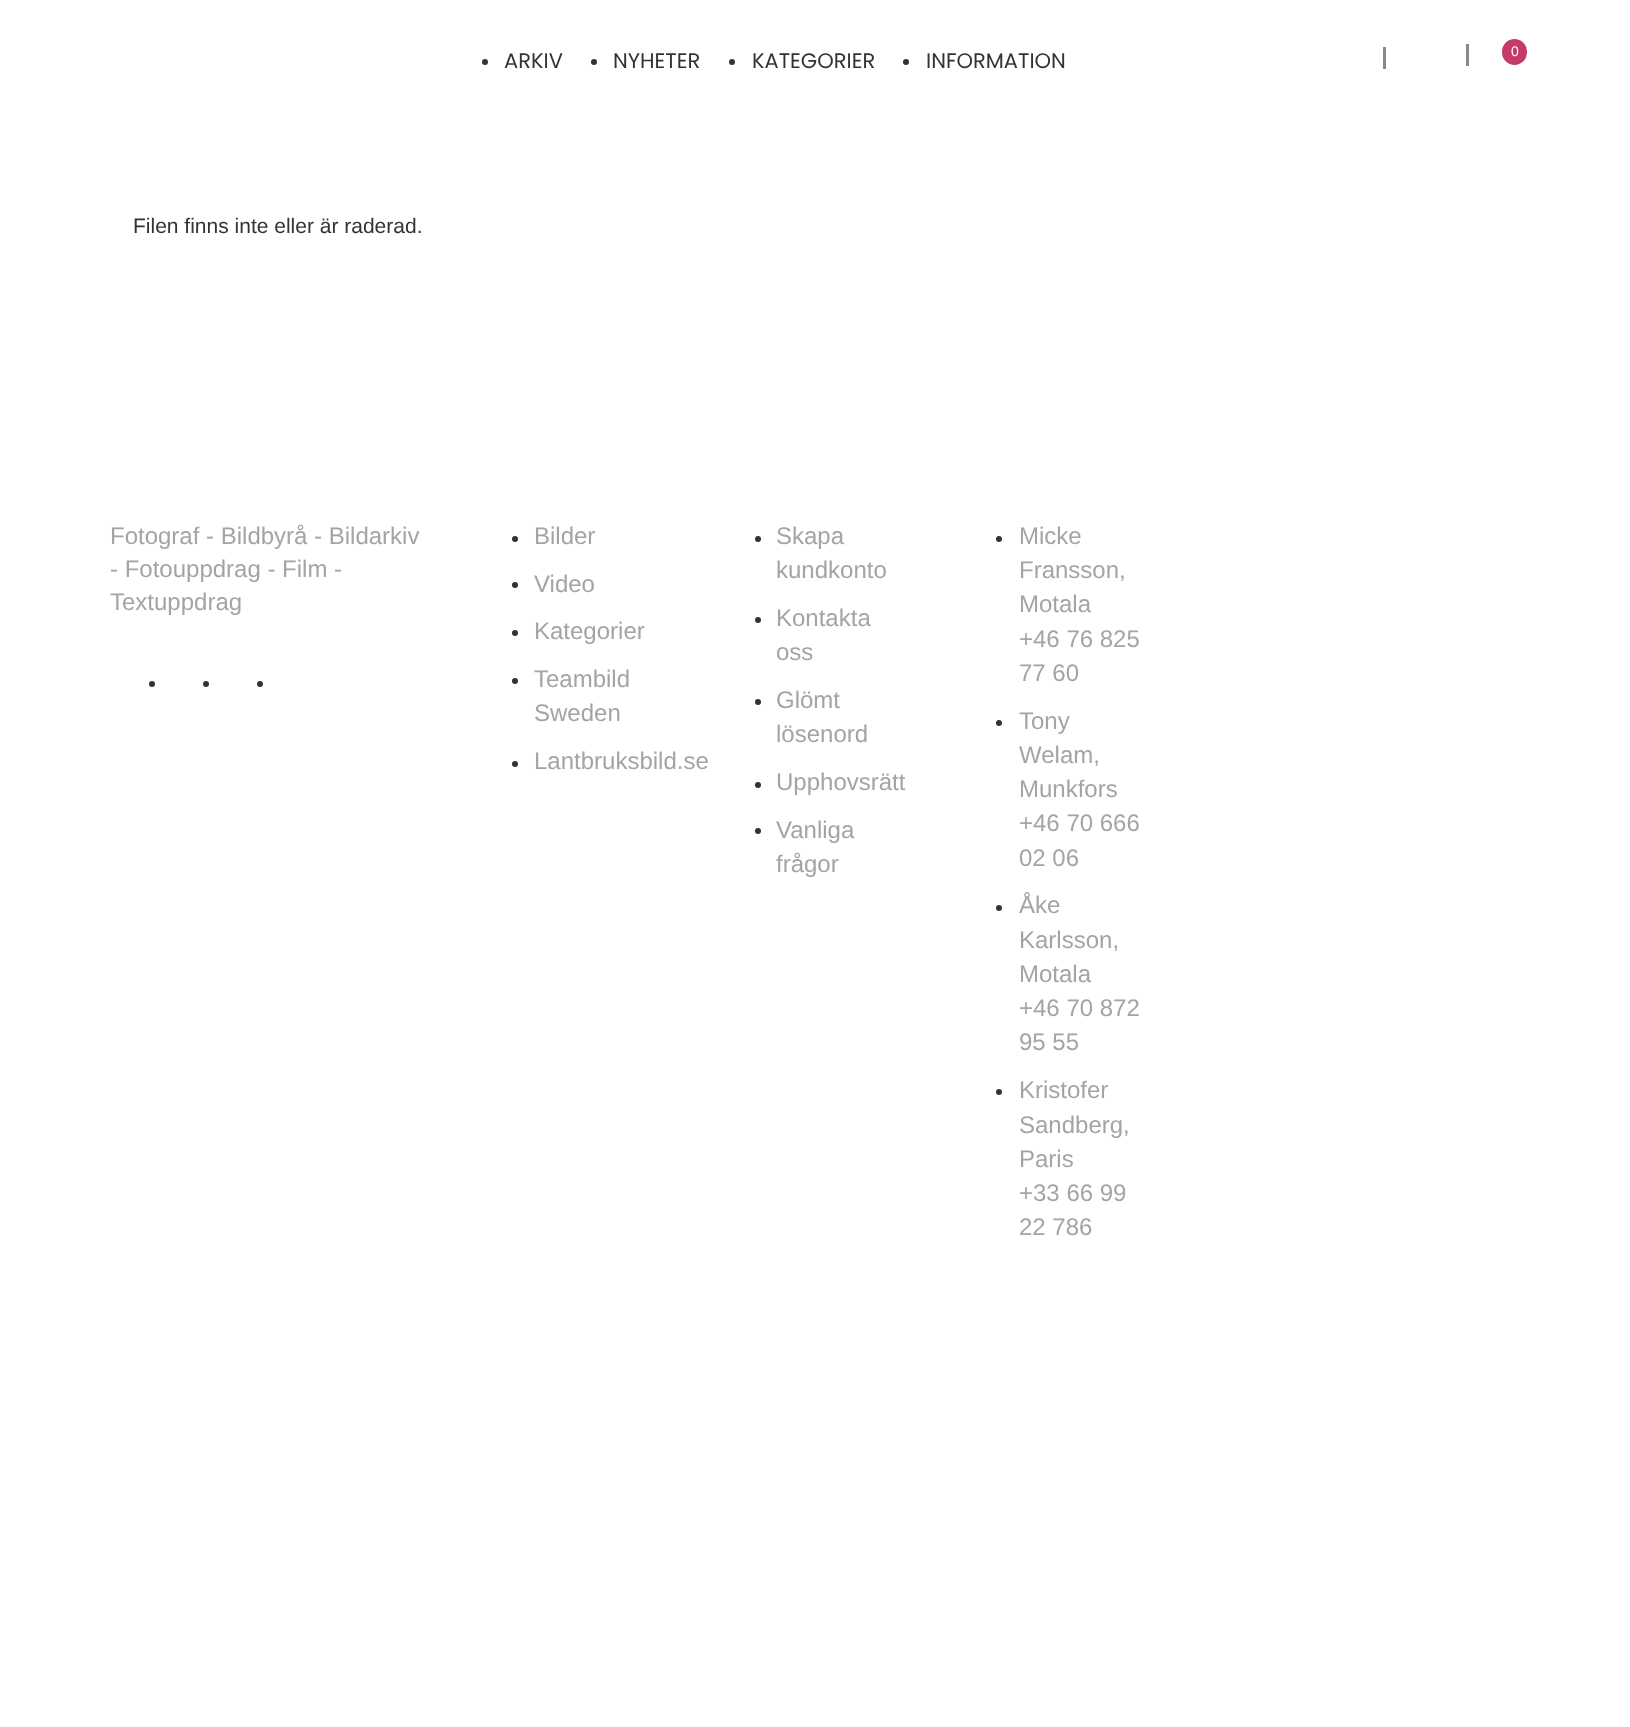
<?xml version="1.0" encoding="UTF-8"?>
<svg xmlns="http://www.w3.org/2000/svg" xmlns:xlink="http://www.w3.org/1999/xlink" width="1630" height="1727">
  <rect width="100%" height="100%" fill="#ffffff" />
  <rect x="1383" y="47" width="3" height="22" fill="#898989" />
  <rect x="1466" y="44" width="3" height="22" fill="#898989" />
  <rect x="1502" y="39" width="25" height="26" rx="12.5" fill="#c43b68" />
  <circle cx="485" cy="62" r="3" fill="#333333" />
  <circle cx="594" cy="62" r="3" fill="#333333" />
  <circle cx="732" cy="62" r="3" fill="#333333" />
  <circle cx="906" cy="62" r="3" fill="#333333" />
  <circle cx="152" cy="684" r="3" fill="#333333" />
  <circle cx="206" cy="684" r="3" fill="#333333" />
  <circle cx="260" cy="684" r="3" fill="#333333" />
  <circle cx="515" cy="539" r="3" fill="#333333" />
  <circle cx="515" cy="585" r="3" fill="#333333" />
  <circle cx="515" cy="633" r="3" fill="#333333" />
  <circle cx="515" cy="681" r="3" fill="#333333" />
  <circle cx="515" cy="764" r="3" fill="#333333" />
  <circle cx="758" cy="539" r="3" fill="#333333" />
  <circle cx="758" cy="620" r="3" fill="#333333" />
  <circle cx="758" cy="702" r="3" fill="#333333" />
  <circle cx="758" cy="785" r="3" fill="#333333" />
  <circle cx="758" cy="831" r="3" fill="#333333" />
  <circle cx="999" cy="539" r="3" fill="#333333" />
  <circle cx="999" cy="723" r="3" fill="#333333" />
  <circle cx="999" cy="908" r="3" fill="#333333" />
  <circle cx="999" cy="1092" r="3" fill="#333333" />
  <text x="1511" y="56" style="font-family: Liberation Sans; font-size: 14px; fill: #ffffff">0</text>
  <text x="504" y="68" style="font-family: Poppins; font-size: 21px; fill: #333333">ARKIV</text>
  <text x="613" y="68" style="font-family: Poppins; font-size: 21px; fill: #333333">NYHETER</text>
  <text x="752" y="68" style="font-family: Poppins; font-size: 21px; fill: #333333">KATEGORIER</text>
  <text x="926" y="68" style="font-family: Poppins; font-size: 21px; fill: #333333">INFORMATION</text>
  <text x="133" y="233" style="font-family: Liberation Sans; font-size: 21px; fill: #333333">Filen finns inte eller är raderad.</text>
  <text x="110" y="544" style="font-family: Liberation Sans; font-size: 24px; fill: #a4a4a4">Fotograf - Bildbyrå - Bildarkiv</text>
  <text x="110" y="577" style="font-family: Liberation Sans; font-size: 24px; fill: #a4a4a4">- Fotouppdrag - Film -</text>
  <text x="110" y="610" style="font-family: Liberation Sans; font-size: 24px; fill: #a4a4a4">Textuppdrag</text>
  <text x="534" y="544" style="font-family: Liberation Sans; font-size: 24px; fill: #a4a4a4">Bilder</text>
  <text x="534" y="592" style="font-family: Liberation Sans; font-size: 24px; fill: #a4a4a4">Video</text>
  <text x="534" y="639" style="font-family: Liberation Sans; font-size: 24px; fill: #a4a4a4">Kategorier</text>
  <text x="534" y="687" style="font-family: Liberation Sans; font-size: 24px; fill: #a4a4a4">Teambild</text>
  <text x="534" y="721" style="font-family: Liberation Sans; font-size: 24px; fill: #a4a4a4">Sweden</text>
  <text x="534" y="769" style="font-family: Liberation Sans; font-size: 24px; fill: #a4a4a4">Lantbruksbild.se</text>
  <text x="776" y="544" style="font-family: Liberation Sans; font-size: 24px; fill: #a4a4a4">Skapa</text>
  <text x="776" y="578" style="font-family: Liberation Sans; font-size: 24px; fill: #a4a4a4">kundkonto</text>
  <text x="776" y="626" style="font-family: Liberation Sans; font-size: 24px; fill: #a4a4a4">Kontakta</text>
  <text x="776" y="660" style="font-family: Liberation Sans; font-size: 24px; fill: #a4a4a4">oss</text>
  <text x="776" y="708" style="font-family: Liberation Sans; font-size: 24px; fill: #a4a4a4">Glömt</text>
  <text x="776" y="742" style="font-family: Liberation Sans; font-size: 24px; fill: #a4a4a4">lösenord</text>
  <text x="776" y="790" style="font-family: Liberation Sans; font-size: 24px; fill: #a4a4a4">Upphovsrätt</text>
  <text x="776" y="838" style="font-family: Liberation Sans; font-size: 24px; fill: #a4a4a4">Vanliga</text>
  <text x="776" y="872" style="font-family: Liberation Sans; font-size: 24px; fill: #a4a4a4">frågor</text>
  <text x="1019" y="544" style="font-family: Liberation Sans; font-size: 24px; fill: #a4a4a4">Micke</text>
  <text x="1019" y="578" style="font-family: Liberation Sans; font-size: 24px; fill: #a4a4a4">Fransson,</text>
  <text x="1019" y="612" style="font-family: Liberation Sans; font-size: 24px; fill: #a4a4a4">Motala</text>
  <text x="1019" y="647" style="font-family: Liberation Sans; font-size: 24px; fill: #a4a4a4">+46 76 825</text>
  <text x="1019" y="681" style="font-family: Liberation Sans; font-size: 24px; fill: #a4a4a4">77 60</text>
  <text x="1019" y="729" style="font-family: Liberation Sans; font-size: 24px; fill: #a4a4a4">Tony</text>
  <text x="1019" y="763" style="font-family: Liberation Sans; font-size: 24px; fill: #a4a4a4">Welam,</text>
  <text x="1019" y="797" style="font-family: Liberation Sans; font-size: 24px; fill: #a4a4a4">Munkfors</text>
  <text x="1019" y="831" style="font-family: Liberation Sans; font-size: 24px; fill: #a4a4a4">+46 70 666</text>
  <text x="1019" y="866" style="font-family: Liberation Sans; font-size: 24px; fill: #a4a4a4">02 06</text>
  <text x="1019" y="913" style="font-family: Liberation Sans; font-size: 24px; fill: #a4a4a4">Åke</text>
  <text x="1019" y="948" style="font-family: Liberation Sans; font-size: 24px; fill: #a4a4a4">Karlsson,</text>
  <text x="1019" y="982" style="font-family: Liberation Sans; font-size: 24px; fill: #a4a4a4">Motala</text>
  <text x="1019" y="1016" style="font-family: Liberation Sans; font-size: 24px; fill: #a4a4a4">+46 70 872</text>
  <text x="1019" y="1050" style="font-family: Liberation Sans; font-size: 24px; fill: #a4a4a4">95 55</text>
  <text x="1019" y="1098" style="font-family: Liberation Sans; font-size: 24px; fill: #a4a4a4">Kristofer</text>
  <text x="1019" y="1133" style="font-family: Liberation Sans; font-size: 24px; fill: #a4a4a4">Sandberg,</text>
  <text x="1019" y="1167" style="font-family: Liberation Sans; font-size: 24px; fill: #a4a4a4">Paris</text>
  <text x="1019" y="1201" style="font-family: Liberation Sans; font-size: 24px; fill: #a4a4a4">+33 66 99</text>
  <text x="1019" y="1235" style="font-family: Liberation Sans; font-size: 24px; fill: #a4a4a4">22 786</text>
</svg>
